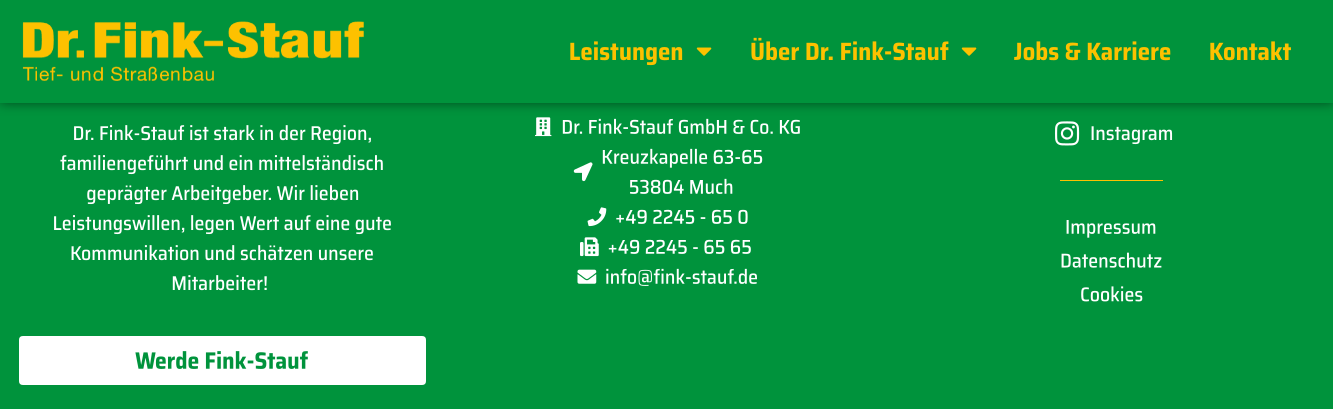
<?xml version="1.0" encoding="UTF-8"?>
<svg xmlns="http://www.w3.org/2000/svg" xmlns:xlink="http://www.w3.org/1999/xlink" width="1333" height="409">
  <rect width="100%" height="100%" fill="#00933c" />
  <image x="535" y="117" width="17" height="20" xlink:href="image14.png" />
  <image x="562" y="118" width="238" height="16" xlink:href="image15.png" />
  <image x="1055" y="121" width="25" height="25" xlink:href="image25.png" />
  <rect width="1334" height="103" fill="#000000" fill-opacity="0.5" filter="blur(6px)" />
  <rect width="1333" height="103" fill="#00933c" />
  <image x="22" y="21" width="342" height="60" xlink:href="image1.png" />
  <image x="570" y="41" width="113" height="25" xlink:href="image2.png" />
  <image x="696" y="47" width="16" height="9" xlink:href="image3.png" />
  <image x="751" y="37" width="198" height="24" xlink:href="image4.png" />
  <image x="961" y="47" width="16" height="9" xlink:href="image3.png" />
  <image x="1014" y="41" width="157" height="20" xlink:href="image5.png" />
  <image x="1210" y="41" width="81" height="20" xlink:href="image6.png" />
  <image x="74" y="125" width="297" height="20" xlink:href="image7.png" />
  <image x="60" y="155" width="323" height="20" xlink:href="image8.png" />
  <image x="87" y="185" width="272" height="20" xlink:href="image9.png" />
  <image x="54" y="215" width="337" height="20" xlink:href="image10.png" />
  <image x="71" y="245" width="302" height="16" xlink:href="image11.png" />
  <image x="172" y="275" width="95" height="16" xlink:href="image12.png" />
  <rect x="19" y="336" width="407" height="49" rx="4" fill="#ffffff" />
  <image x="135" y="351" width="173" height="18" xlink:href="image13.png" />
  <image x="573" y="162" width="20" height="20" xlink:href="image16.png" />
  <image x="602" y="148" width="161" height="20" xlink:href="image17.png" />
  <image x="630" y="178" width="103" height="16" xlink:href="image18.png" />
  <image x="587" y="207" width="20" height="20" xlink:href="image19.png" />
  <image x="616" y="209" width="132" height="15" xlink:href="image20.png" />
  <image x="580" y="237" width="19" height="20" xlink:href="image21.png" />
  <image x="608" y="239" width="143" height="15" xlink:href="image22.png" />
  <image x="577" y="269" width="20" height="15" xlink:href="image23.png" />
  <image x="606" y="268" width="151" height="18" xlink:href="image24.png" />
  <image x="1091" y="126" width="82" height="19" xlink:href="image26.png" />
  <rect x="1060" y="180" width="103" height="1" fill="#fdc100" />
  <image x="1066" y="220" width="90" height="18" xlink:href="image27.png" />
  <image x="1061" y="252" width="101" height="16" xlink:href="image28.png" />
  <image x="1081" y="286" width="62" height="16" xlink:href="image29.png" />
</svg>
